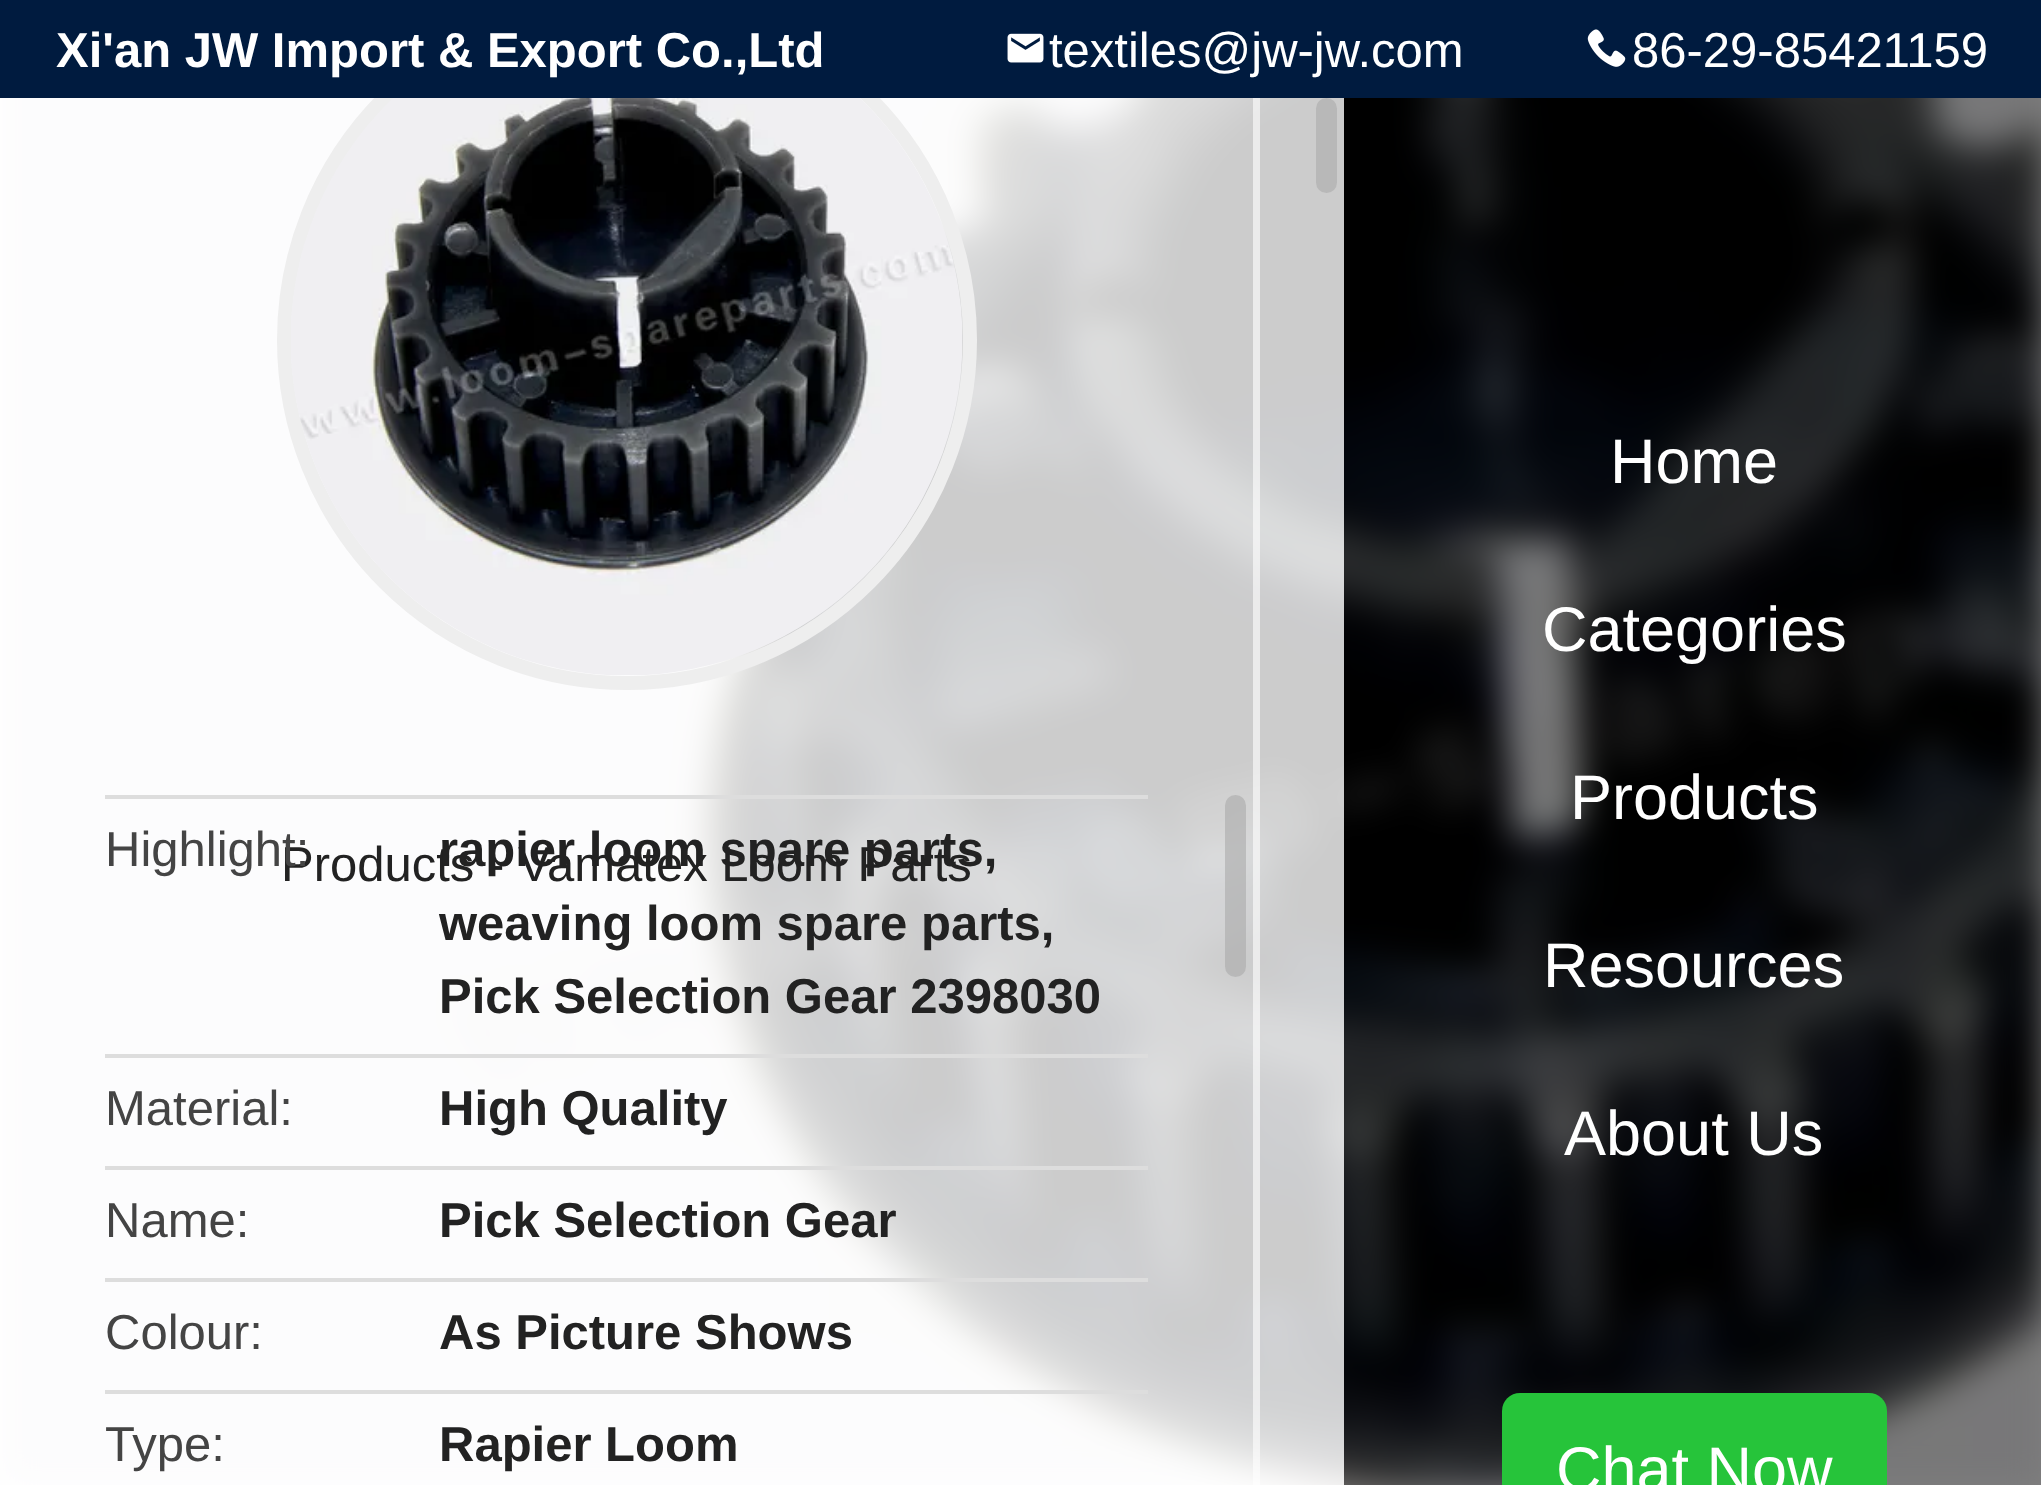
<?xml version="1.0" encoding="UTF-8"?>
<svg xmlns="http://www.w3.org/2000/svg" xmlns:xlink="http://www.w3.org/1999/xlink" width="2041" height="1485">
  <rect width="100%" height="100%" fill="#ffffff" />
  <image x="0" y="98" width="2041" height="1387" xlink:href="image3.png" />
  <rect y="98" width="1260" height="1387" fill="#ffffff" fill-opacity="0.8" />
  <circle cx="627" cy="340" r="343" fill="none" stroke="#eeeeee" stroke-width="14" />
  <rect width="2041" height="98" fill="#001b3f" />
  <image x="1007" y="33" width="37" height="30" xlink:href="image1.png" />
  <image x="1587" y="29" width="39" height="38" xlink:href="image2.png" />
  <rect x="1253" y="98" width="7" height="1387" fill="#ffffff" fill-opacity="0.6" />
  <rect x="105" y="795" width="1043" height="4" fill="#dddddd" />
  <rect x="105" y="1054" width="1043" height="4" fill="#dddddd" />
  <rect x="105" y="1166" width="1043" height="4" fill="#dddddd" />
  <rect x="105" y="1278" width="1043" height="4" fill="#dddddd" />
  <rect x="105" y="1390" width="1043" height="4" fill="#dddddd" />
  <rect x="1225" y="795" width="21" height="182" rx="10.5" fill="#aaaaaa" fill-opacity="0.6" />
  <image x="291" y="98" width="672" height="577" xlink:href="image4.png" />
  <rect x="1260" y="98" width="84" height="1387" fill="#ffffff" fill-opacity="0.8" />
  <rect x="1316" y="98" width="21" height="95" rx="10.5" fill="#b8b8b8" />
  <rect x="1344" y="98" width="697" height="1387" fill="#000000" fill-opacity="0.5" />
  <rect x="1502" y="1393" width="385" height="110" rx="18" fill="#26c43a" />
  <text x="56" y="67" style="font-family: Liberation Sans; font-size: 49px; font-weight: bold; fill: #ffffff">Xi'an JW Import &amp; Export Co.,Ltd</text>
  <text x="1049" y="67" style="font-family: Liberation Sans; font-size: 49px; fill: #ffffff">textiles@jw-jw.com</text>
  <text x="1632" y="67" style="font-family: Liberation Sans; font-size: 49px; fill: #ffffff">86-29-85421159</text>
  <text x="439" y="940" style="font-family: Liberation Sans; font-size: 49px; font-weight: bold; fill: #222222">weaving loom spare parts,</text>
  <text x="439" y="1013" style="font-family: Liberation Sans; font-size: 49px; font-weight: bold; fill: #222222">Pick Selection Gear 2398030</text>
  <text x="105" y="1125" style="font-family: Liberation Sans; font-size: 49px; fill: #444444">Material:</text>
  <text x="439" y="1125" style="font-family: Liberation Sans; font-size: 49px; font-weight: bold; fill: #222222">High Quality</text>
  <text x="105" y="1237" style="font-family: Liberation Sans; font-size: 49px; fill: #444444">Name:</text>
  <text x="439" y="1237" style="font-family: Liberation Sans; font-size: 49px; font-weight: bold; fill: #222222">Pick Selection Gear</text>
  <text x="105" y="1349" style="font-family: Liberation Sans; font-size: 49px; fill: #444444">Colour:</text>
  <text x="439" y="1349" style="font-family: Liberation Sans; font-size: 49px; font-weight: bold; fill: #222222">As Picture Shows</text>
  <text x="105" y="1461" style="font-family: Liberation Sans; font-size: 49px; fill: #444444">Type:</text>
  <text x="439" y="1461" style="font-family: Liberation Sans; font-size: 49px; font-weight: bold; fill: #222222">Rapier Loom</text>
  <text x="281" y="881" style="font-family: Liberation Sans; font-size: 49px; fill: #222222">Products - Vamatex Loom Parts</text>
  <text x="439" y="866" style="font-family: Liberation Sans; font-size: 49px; font-weight: bold; fill: #222222">rapier loom spare parts,</text>
  <text x="105" y="866" style="font-family: Liberation Sans; font-size: 49px; fill: #444444">Highlight:</text>
  <text x="1610" y="483" style="font-family: Liberation Sans; font-size: 63px; fill: #ffffff">Home</text>
  <text x="1542" y="651" style="font-family: Liberation Sans; font-size: 63px; fill: #ffffff">Categories</text>
  <text x="1570" y="819" style="font-family: Liberation Sans; font-size: 63px; fill: #ffffff">Products</text>
  <text x="1543" y="987" style="font-family: Liberation Sans; font-size: 63px; fill: #ffffff">Resources</text>
  <text x="1564" y="1155" style="font-family: Liberation Sans; font-size: 63px; fill: #ffffff">About Us</text>
  <text x="1556" y="1491" style="font-family: Liberation Sans; font-size: 63px; fill: #ffffff">Chat Now</text>
</svg>
